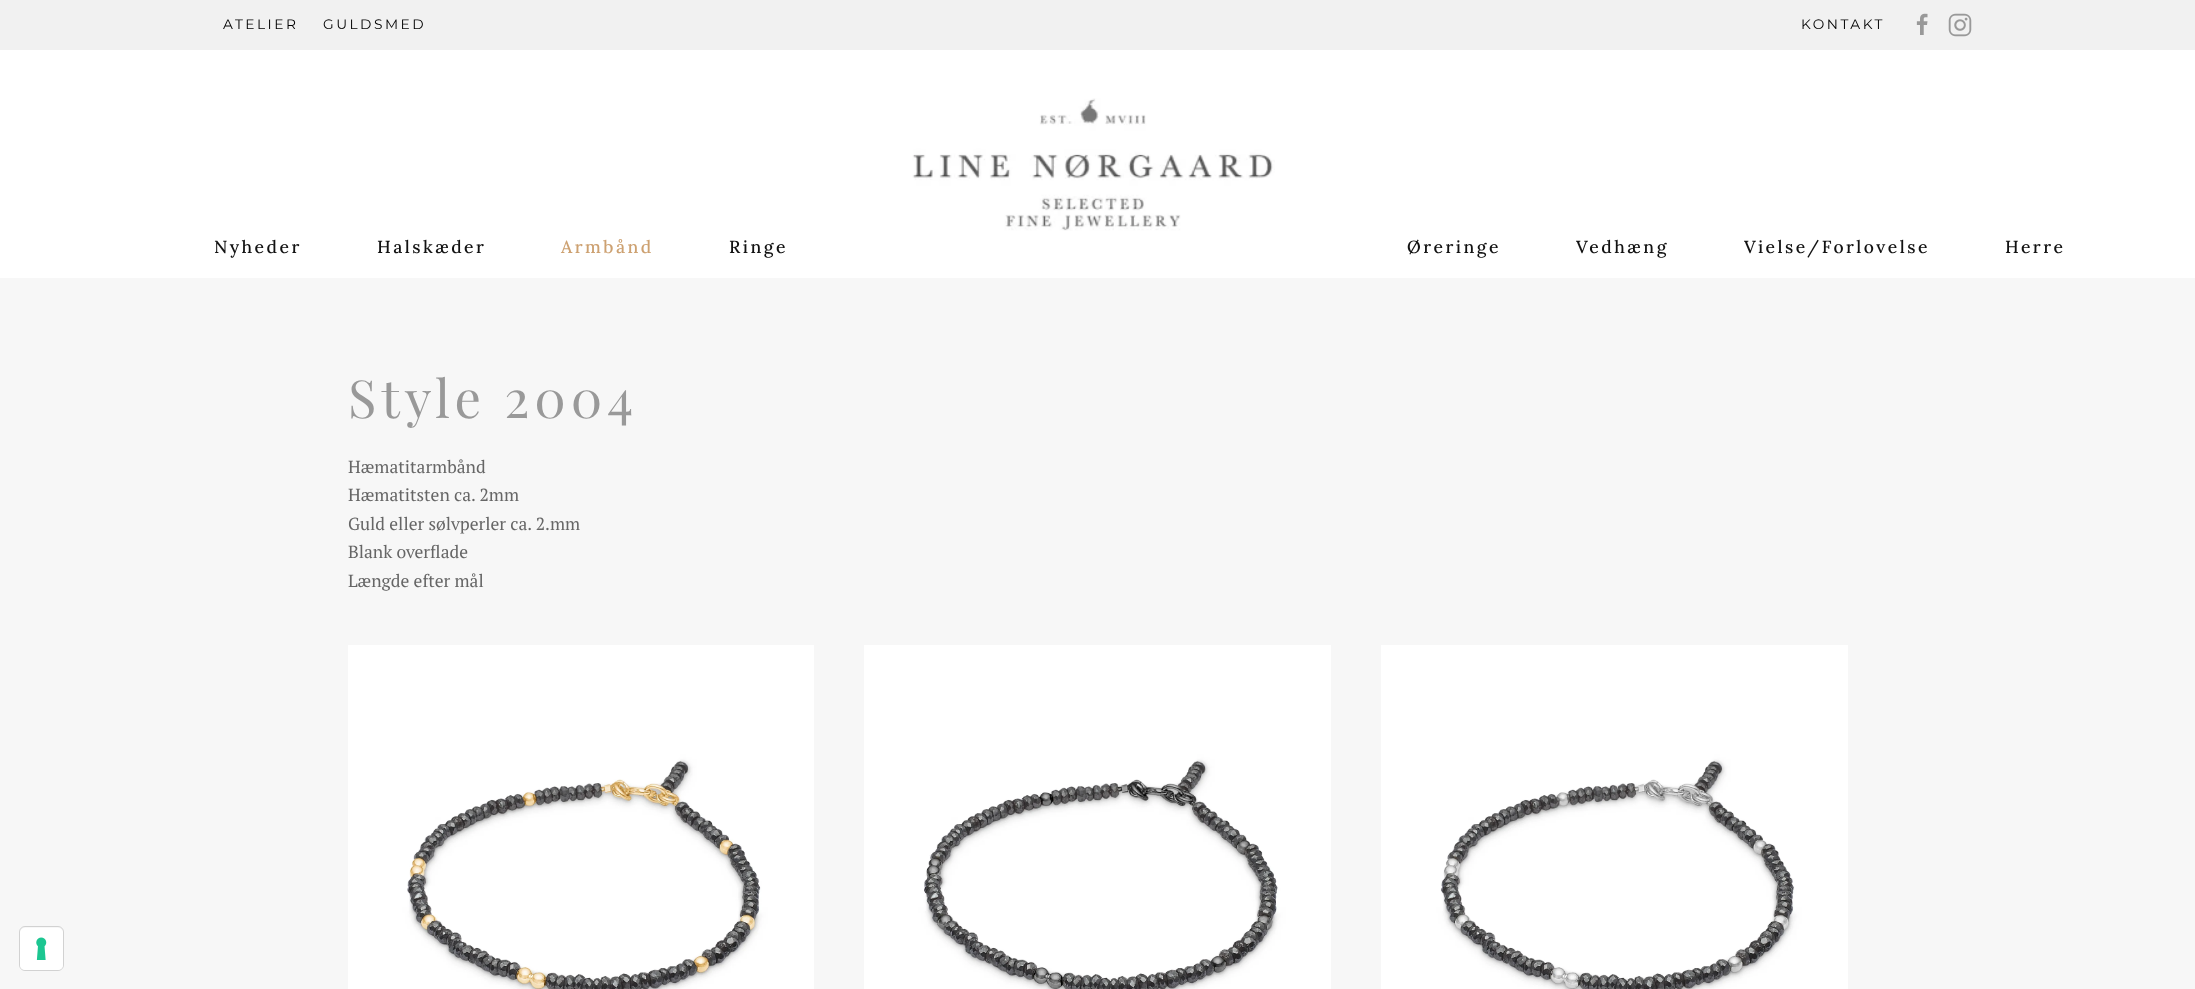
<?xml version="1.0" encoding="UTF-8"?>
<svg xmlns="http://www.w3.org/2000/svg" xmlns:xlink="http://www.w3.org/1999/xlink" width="2195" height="989">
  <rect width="100%" height="100%" fill="#ffffff" />
  <rect width="2195" height="50" fill="#f1f1f1" />
  <image x="1916" y="13" width="12" height="22" xlink:href="image1.png" />
  <image x="1948" y="13" width="24" height="24" xlink:href="image2.png" />
  <image x="912" y="98" width="363" height="133" xlink:href="image3.png" />
  <rect y="278" width="2195" height="711" fill="#f7f7f7" />
  <image x="348" y="645" width="466" height="344" xlink:href="image4.png" />
  <image x="864" y="645" width="467" height="344" xlink:href="image5.png" />
  <image x="1381" y="645" width="467" height="344" xlink:href="image6.png" />
  <rect x="19.5" y="926.5" width="44" height="44" rx="5.5" fill="none" stroke="#d2d2d2" />
  <rect x="20" y="928" width="43" height="42" rx="5" fill="#ffffff" />
  <image x="36" y="937" width="11" height="23" xlink:href="image7.png" />
  <text x="223" y="29" style="font-family: Montserrat; font-size: 13.75px; font-weight: 100; letter-spacing: 2.5px; fill: #000000">ATELIER</text>
  <text x="323" y="29" style="font-family: Montserrat; font-size: 13.75px; font-weight: 100; letter-spacing: 2.5px; fill: #000000">GULDSMED</text>
  <text x="1801" y="29" style="font-family: Montserrat; font-size: 13.75px; font-weight: 100; letter-spacing: 2.5px; fill: #000000">KONTAKT</text>
  <text x="214" y="253" style="font-family: Lora; font-size: 17.5px; font-weight: 500; letter-spacing: 2.5px; fill: #121212">Nyheder</text>
  <text x="377" y="253" style="font-family: Lora; font-size: 17.5px; font-weight: 500; letter-spacing: 2.5px; fill: #121212">Halskæder</text>
  <text x="561" y="253" style="font-family: Lora; font-size: 17.5px; font-weight: 500; letter-spacing: 2.5px; fill: #cda171">Armbånd</text>
  <text x="729" y="253" style="font-family: Lora; font-size: 17.5px; font-weight: 500; letter-spacing: 2.5px; fill: #121212">Ringe</text>
  <text x="1407" y="253" style="font-family: Lora; font-size: 17.5px; font-weight: 500; letter-spacing: 2.5px; fill: #121212">Øreringe</text>
  <text x="1576" y="253" style="font-family: Lora; font-size: 17.5px; font-weight: 500; letter-spacing: 2.5px; fill: #121212">Vedhæng</text>
  <text x="1744" y="253" style="font-family: Lora; font-size: 17.5px; font-weight: 500; letter-spacing: 2.5px; fill: #121212">Vielse/Forlovelse</text>
  <text x="2005" y="253" style="font-family: Lora; font-size: 17.5px; font-weight: 500; letter-spacing: 2.5px; fill: #121212">Herre</text>
  <text x="348" y="418" style="font-family: Playfair Display; font-size: 52.5px; letter-spacing: 5px; fill: #999999">Style 2004</text>
  <text x="348" y="473" style="font-family: PT Serif; font-size: 17.5px; fill: #666666">Hæmatitarmbånd</text>
  <text x="348" y="501" style="font-family: PT Serif; font-size: 17.5px; fill: #666666">Hæmatitsten ca. 2mm</text>
  <text x="348" y="530" style="font-family: PT Serif; font-size: 17.5px; fill: #666666">Guld eller sølvperler ca. 2.mm</text>
  <text x="348" y="558" style="font-family: PT Serif; font-size: 17.5px; fill: #666666">Blank overflade</text>
  <text x="348" y="587" style="font-family: PT Serif; font-size: 17.5px; fill: #666666">Længde efter mål</text>
</svg>
